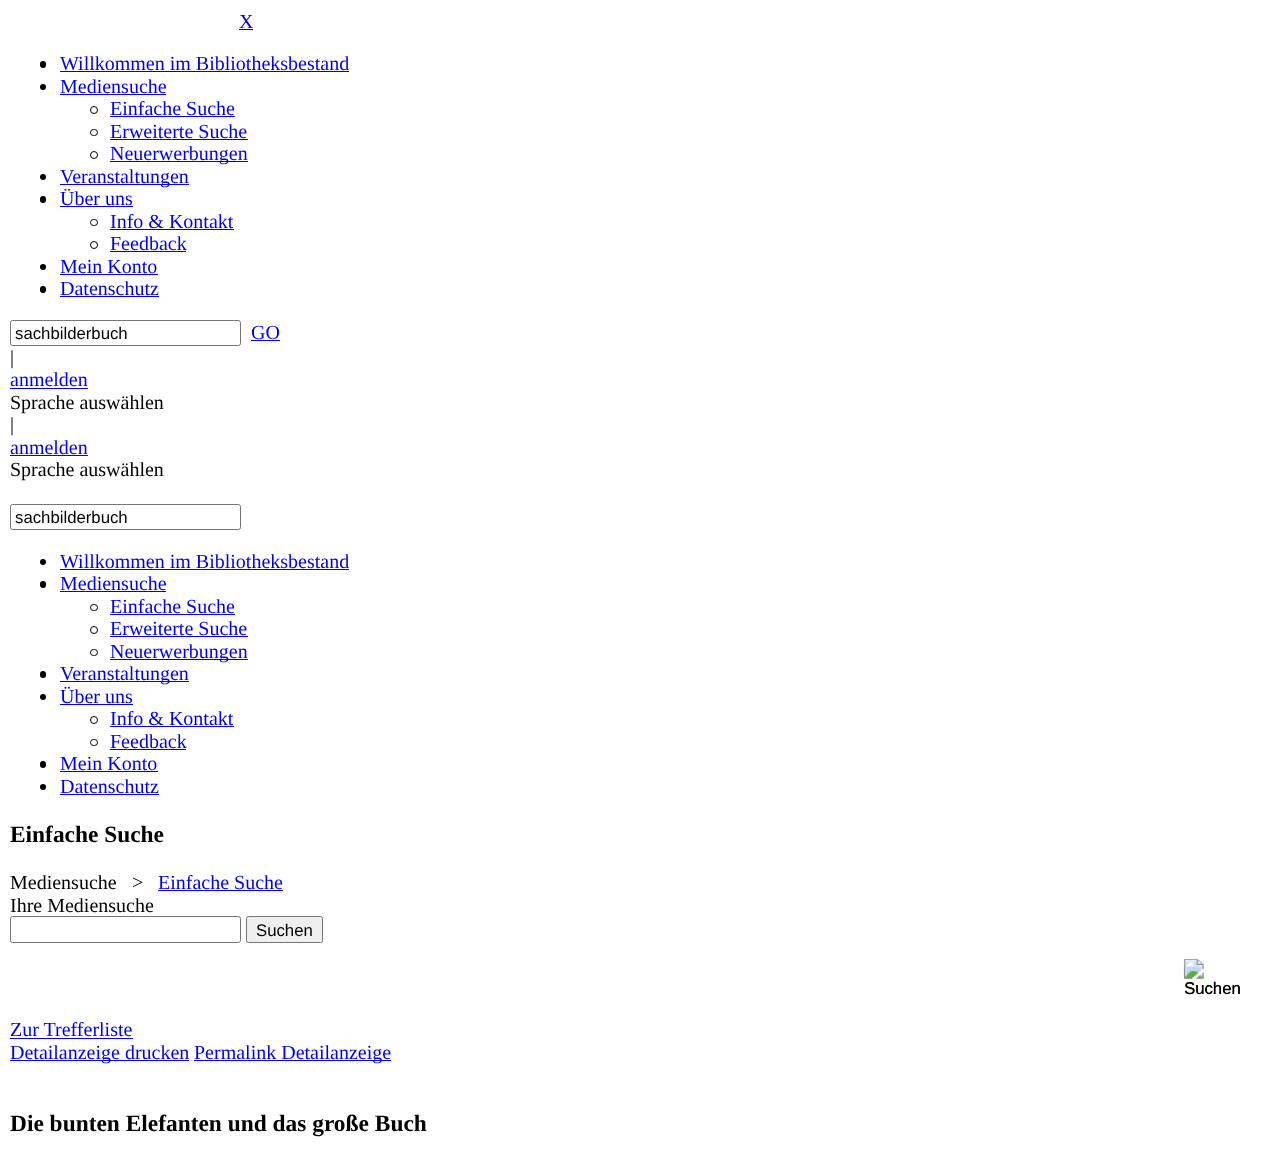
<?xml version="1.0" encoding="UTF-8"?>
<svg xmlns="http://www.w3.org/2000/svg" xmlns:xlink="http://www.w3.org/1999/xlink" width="1266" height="1157">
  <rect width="100%" height="100%" fill="#ffffff" />
  <rect x="239" y="29" width="14" height="1" fill="#0000ee" />
  <rect x="40" y="61" width="6" height="7" rx="3" fill="#000000" />
  <rect x="60" y="71" width="289" height="1" fill="#0000ee" />
  <circle cx="43" cy="87" r="3" fill="#000000" />
  <rect x="60" y="94" width="106" height="1" fill="#0000ee" />
  <circle cx="94" cy="110" r="3.5" fill="none" stroke="#000000" />
  <rect x="110" y="116" width="125" height="1" fill="#0000ee" />
  <rect x="90.5" y="129.5" width="7" height="6" rx="3" fill="none" stroke="#000000" />
  <rect x="110" y="139" width="138" height="1" fill="#0000ee" />
  <circle cx="94" cy="155" r="3.5" fill="none" stroke="#000000" />
  <rect x="110" y="161" width="138" height="1" fill="#0000ee" />
  <circle cx="43" cy="177" r="3" fill="#000000" />
  <rect x="60" y="184" width="129" height="1" fill="#0000ee" />
  <rect x="40" y="196" width="6" height="7" rx="3" fill="#000000" />
  <rect x="60" y="206" width="73" height="1" fill="#0000ee" />
  <rect x="90.5" y="219.5" width="7" height="6" rx="3" fill="none" stroke="#000000" />
  <rect x="110" y="229" width="124" height="1" fill="#0000ee" />
  <circle cx="94" cy="245" r="3.5" fill="none" stroke="#000000" />
  <rect x="110" y="251" width="76" height="1" fill="#0000ee" />
  <circle cx="43" cy="267" r="3" fill="#000000" />
  <rect x="60" y="274" width="98" height="1" fill="#0000ee" />
  <rect x="40" y="286" width="6" height="7" rx="3" fill="#000000" />
  <rect x="60" y="296" width="99" height="1" fill="#0000ee" />
  <rect x="10.5" y="320.5" width="230" height="25" rx="2" fill="none" stroke="#767676" />
  <rect x="251" y="340" width="29" height="1" fill="#0000ee" />
  <rect x="10" y="388" width="78" height="1" fill="#0000ee" />
  <rect x="10" y="455" width="78" height="1" fill="#0000ee" />
  <rect x="10.5" y="504.5" width="230" height="25" rx="2" fill="none" stroke="#767676" />
  <circle cx="43" cy="562" r="3" fill="#000000" />
  <rect x="60" y="569" width="289" height="1" fill="#0000ee" />
  <rect x="40" y="581" width="6" height="7" rx="3" fill="#000000" />
  <rect x="60" y="591" width="106" height="1" fill="#0000ee" />
  <rect x="90.5" y="604.5" width="7" height="6" rx="3" fill="none" stroke="#000000" />
  <rect x="110" y="614" width="125" height="1" fill="#0000ee" />
  <circle cx="94" cy="630" r="3.5" fill="none" stroke="#000000" />
  <rect x="110" y="636" width="138" height="1" fill="#0000ee" />
  <rect x="90.5" y="649.5" width="7" height="6" rx="3" fill="none" stroke="#000000" />
  <rect x="110" y="659" width="138" height="1" fill="#0000ee" />
  <rect x="40" y="671" width="6" height="7" rx="3" fill="#000000" />
  <rect x="60" y="681" width="129" height="1" fill="#0000ee" />
  <circle cx="43" cy="697" r="3" fill="#000000" />
  <rect x="60" y="704" width="73" height="1" fill="#0000ee" />
  <circle cx="94" cy="720" r="3.5" fill="none" stroke="#000000" />
  <rect x="110" y="726" width="124" height="1" fill="#0000ee" />
  <rect x="90.5" y="739.5" width="7" height="6" rx="3" fill="none" stroke="#000000" />
  <rect x="110" y="749" width="76" height="1" fill="#0000ee" />
  <rect x="40" y="761" width="6" height="7" rx="3" fill="#000000" />
  <rect x="60" y="771" width="98" height="1" fill="#0000ee" />
  <circle cx="43" cy="787" r="3" fill="#000000" />
  <rect x="60" y="794" width="99" height="1" fill="#0000ee" />
  <rect x="158" y="890" width="125" height="1" fill="#0000ee" />
  <rect x="10.5" y="916.5" width="230" height="26" rx="2" fill="none" stroke="#767676" />
  <rect x="246.5" y="916.5" width="76" height="26" rx="2" fill="#efefef" stroke="#767676" />
  <image x="1183" y="958" width="57" height="36" xlink:href="image1.png" />
  <rect x="10" y="1038" width="123" height="1" fill="#0000ee" />
  <rect x="10" y="1060" width="179" height="1" fill="#0000ee" />
  <rect x="194" y="1060" width="197" height="1" fill="#0000ee" />
  <text x="239" y="28" style="font-family: Liberation Serif; font-size: 20px; fill: #0000ee">X</text>
  <text x="60" y="70" style="font-family: Liberation Serif; font-size: 20px; fill: #0000ee">Willkommen im Bibliotheksbestand</text>
  <text x="60" y="93" style="font-family: Liberation Serif; font-size: 20px; fill: #0000ee">Mediensuche</text>
  <text x="110" y="115" style="font-family: Liberation Serif; font-size: 20px; fill: #0000ee">Einfache Suche</text>
  <text x="110" y="138" style="font-family: Liberation Serif; font-size: 20px; fill: #0000ee">Erweiterte Suche</text>
  <text x="110" y="160" style="font-family: Liberation Serif; font-size: 20px; fill: #0000ee">Neuerwerbungen</text>
  <text x="60" y="183" style="font-family: Liberation Serif; font-size: 20px; fill: #0000ee">Veranstaltungen</text>
  <text x="60" y="205" style="font-family: Liberation Serif; font-size: 20px; fill: #0000ee">Über uns</text>
  <text x="110" y="228" style="font-family: Liberation Serif; font-size: 20px; fill: #0000ee">Info &amp; Kontakt</text>
  <text x="110" y="250" style="font-family: Liberation Serif; font-size: 20px; fill: #0000ee">Feedback</text>
  <text x="60" y="273" style="font-family: Liberation Serif; font-size: 20px; fill: #0000ee">Mein Konto</text>
  <text x="60" y="295" style="font-family: Liberation Serif; font-size: 20px; fill: #0000ee">Datenschutz</text>
  <text x="15" y="339" style="font-family: Liberation Sans; font-size: 16.75px; fill: #000000">sachbilderbuch</text>
  <text x="251" y="339" style="font-family: Liberation Serif; font-size: 20px; fill: #0000ee">GO</text>
  <text x="10" y="364" style="font-family: Liberation Serif; font-size: 20px; fill: #000000">|</text>
  <text x="10" y="386" style="font-family: Liberation Serif; font-size: 20px; fill: #0000ee">anmelden</text>
  <text x="10" y="409" style="font-family: Liberation Serif; font-size: 20px; fill: #000000">Sprache auswählen</text>
  <text x="10" y="431" style="font-family: Liberation Serif; font-size: 20px; fill: #000000">|</text>
  <text x="10" y="454" style="font-family: Liberation Serif; font-size: 20px; fill: #0000ee">anmelden</text>
  <text x="10" y="476" style="font-family: Liberation Serif; font-size: 20px; fill: #000000">Sprache auswählen</text>
  <text x="15" y="523" style="font-family: Liberation Sans; font-size: 16.75px; fill: #000000">sachbilderbuch</text>
  <text x="60" y="568" style="font-family: Liberation Serif; font-size: 20px; fill: #0000ee">Willkommen im Bibliotheksbestand</text>
  <text x="60" y="590" style="font-family: Liberation Serif; font-size: 20px; fill: #0000ee">Mediensuche</text>
  <text x="110" y="613" style="font-family: Liberation Serif; font-size: 20px; fill: #0000ee">Einfache Suche</text>
  <text x="110" y="635" style="font-family: Liberation Serif; font-size: 20px; fill: #0000ee">Erweiterte Suche</text>
  <text x="110" y="658" style="font-family: Liberation Serif; font-size: 20px; fill: #0000ee">Neuerwerbungen</text>
  <text x="60" y="680" style="font-family: Liberation Serif; font-size: 20px; fill: #0000ee">Veranstaltungen</text>
  <text x="60" y="703" style="font-family: Liberation Serif; font-size: 20px; fill: #0000ee">Über uns</text>
  <text x="110" y="725" style="font-family: Liberation Serif; font-size: 20px; fill: #0000ee">Info &amp; Kontakt</text>
  <text x="110" y="748" style="font-family: Liberation Serif; font-size: 20px; fill: #0000ee">Feedback</text>
  <text x="60" y="770" style="font-family: Liberation Serif; font-size: 20px; fill: #0000ee">Mein Konto</text>
  <text x="60" y="793" style="font-family: Liberation Serif; font-size: 20px; fill: #0000ee">Datenschutz</text>
  <text x="10" y="842" style="font-family: Liberation Serif; font-size: 23.4px; font-weight: bold; fill: #000000">Einfache Suche</text>
  <text x="10" y="889" style="font-family: Liberation Serif; font-size: 20px; fill: #000000">Mediensuche</text>
  <text x="132" y="889" style="font-family: Liberation Serif; font-size: 20px; fill: #000000">&gt;</text>
  <text x="158" y="889" style="font-family: Liberation Serif; font-size: 20px; fill: #0000ee">Einfache Suche</text>
  <text x="10" y="912" style="font-family: Liberation Serif; font-size: 20px; fill: #000000">Ihre Mediensuche</text>
  <text x="256" y="936" style="font-family: Liberation Sans; font-size: 16.75px; fill: #000000">Suchen</text>
  <text x="1184" y="994" style="font-family: Liberation Sans; font-size: 16.75px; fill: #000000">Suchen</text>
  <text x="10" y="1036" style="font-family: Liberation Serif; font-size: 20px; fill: #0000ee">Zur Trefferliste</text>
  <text x="10" y="1059" style="font-family: Liberation Serif; font-size: 20px; fill: #0000ee">Detailanzeige drucken</text>
  <text x="194" y="1059" style="font-family: Liberation Serif; font-size: 20px; fill: #0000ee">Permalink Detailanzeige</text>
  <text x="10" y="1131" style="font-family: Liberation Serif; font-size: 23.4px; font-weight: bold; fill: #000000">Die bunten Elefanten und das große Buch</text>
</svg>
